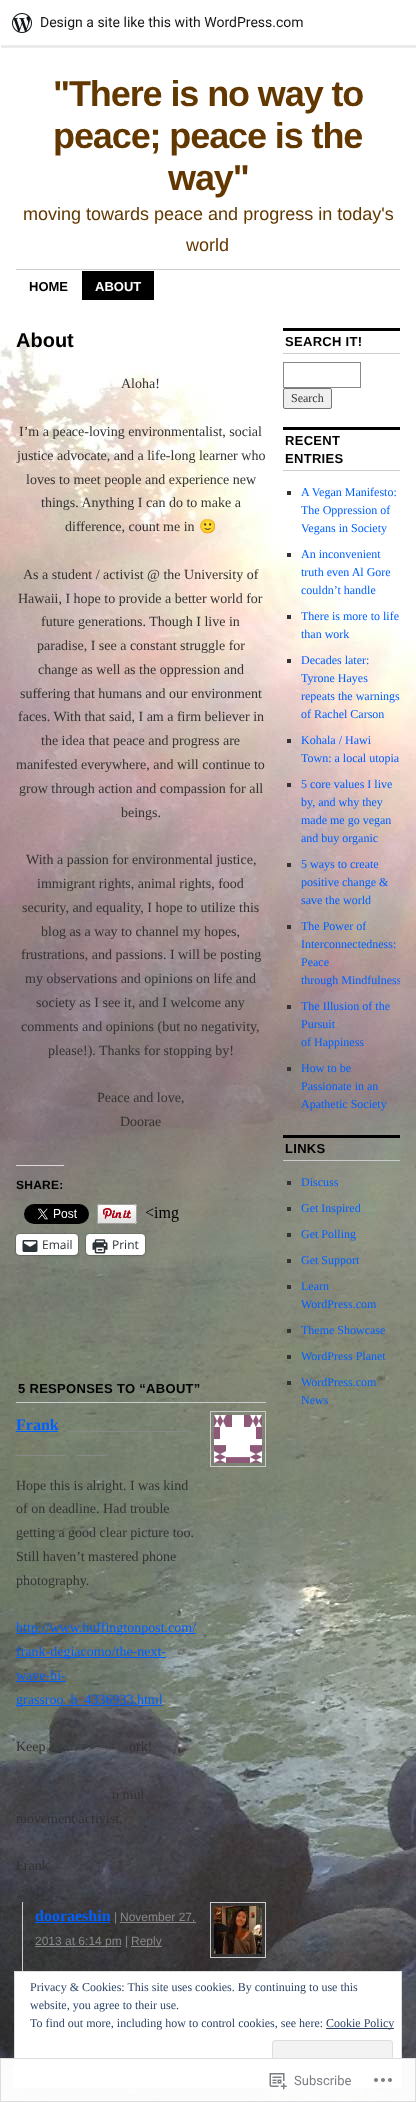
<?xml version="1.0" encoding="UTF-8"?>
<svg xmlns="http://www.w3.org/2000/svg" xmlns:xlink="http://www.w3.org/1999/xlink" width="416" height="2102">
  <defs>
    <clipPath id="clip1"><rect x="283" y="328" width="117" height="1103" /></clipPath>
  </defs>
  <rect width="100%" height="100%" fill="#ffffff" />
  <image x="0" y="0" width="416" height="2102" xlink:href="image1.png" />
  <path d="M 1 45 v 3 h 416 v -45 h -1 v 42 z" fill="#000000" fill-opacity="0.08" />
  <image x="12" y="13" width="20" height="20" xlink:href="image2.png" />
  <rect x="16" y="269" width="384" height="1" fill="#cccccc" />
  <rect x="82" y="271" width="72" height="29" fill="#000000" />
  <rect x="16" y="1165" width="48" height="1" fill="#dcdcde" />
  <image x="24" y="1204" width="65" height="20" xlink:href="image3.png" />
  <image x="97" y="1204" width="40" height="20" xlink:href="image4.png" />
  <image x="145" y="1207" width="34" height="15" xlink:href="image5.png" />
  <rect x="15.5" y="1233.5" width="63" height="22" rx="4.5" fill="none" stroke="#000000" stroke-opacity="0.12" />
  <rect x="16" y="1235" width="62" height="21" rx="4" fill="#000000" fill-opacity="0.12" filter="blur(1px)" />
  <rect x="16" y="1234" width="62" height="21" rx="4" fill="#ffffff" />
  <image x="22" y="1240" width="16" height="12" xlink:href="image6.png" />
  <rect x="85.5" y="1233.5" width="60" height="22" rx="4.5" fill="none" stroke="#000000" stroke-opacity="0.12" />
  <rect x="86" y="1235" width="59" height="21" rx="4" fill="#000000" fill-opacity="0.12" filter="blur(1px)" />
  <rect x="86" y="1234" width="59" height="21" rx="4" fill="#ffffff" />
  <image x="92" y="1239" width="16" height="15" xlink:href="image7.png" />
  <rect x="16" y="1402" width="250" height="1" fill="#cccccc" />
  <rect x="16" y="1431" width="42" height="1" fill="#0060ff" />
  <rect x="210.5" y="1411.5" width="55" height="55" fill="none" stroke="#cccccc" />
  <image x="214" y="1415" width="48" height="48" xlink:href="image8.png" />
  <rect x="68" y="1431" width="119" height="1" fill="#888888" />
  <rect x="16" y="1455" width="50" height="1" fill="#888888" />
  <rect x="76" y="1455" width="30" height="1" fill="#888888" />
  <rect x="16" y="1633" width="180" height="1" fill="#0060ff" />
  <rect x="16" y="1657" width="150" height="1" fill="#0060ff" />
  <rect x="16" y="1681" width="50" height="1" fill="#0060ff" />
  <rect x="16" y="1705" width="146" height="1" fill="#0060ff" />
  <rect x="22" y="1902" width="1" height="69" fill="#cccccc" />
  <rect x="35" y="1922" width="75" height="1" fill="#0060ff" />
  <rect x="120" y="1922" width="76" height="1" fill="#888888" />
  <rect x="210.5" y="1902.5" width="55" height="55" fill="none" stroke="#cccccc" />
  <image x="214" y="1906" width="48" height="48" xlink:href="image9.png" />
  <rect x="35" y="1946" width="86" height="1" fill="#888888" />
  <rect x="131" y="1946" width="31" height="1" fill="#888888" />
  <rect x="283" y="328" width="117" height="3" fill="#000000" />
  <rect x="283" y="353" width="117" height="1" fill="#cccccc" />
  <rect x="283.5" y="362.5" width="77" height="25" fill="none" stroke="#888888" />
  <rect x="283.5" y="388.5" width="48" height="20" rx="1.5" fill="#efefef" stroke="#767676" />
  <rect x="283" y="427" width="117" height="3" fill="#000000" />
  <rect x="283" y="470" width="117" height="1" fill="#cccccc" />
  <rect x="287" y="491" width="4" height="4" fill="#333333" />
  <rect x="287" y="553" width="4" height="4" fill="#333333" />
  <rect x="287" y="615" width="4" height="4" fill="#333333" />
  <rect x="287" y="659" width="4" height="4" fill="#333333" />
  <rect x="287" y="739" width="4" height="4" fill="#333333" />
  <rect x="287" y="783" width="4" height="4" fill="#333333" />
  <rect x="287" y="863" width="4" height="4" fill="#333333" />
  <rect x="287" y="925" width="4" height="4" fill="#333333" />
  <rect x="287" y="1005" width="4" height="4" fill="#333333" />
  <rect x="287" y="1067" width="4" height="4" fill="#333333" />
  <rect x="283" y="1135" width="117" height="3" fill="#000000" />
  <rect x="283" y="1160" width="117" height="1" fill="#cccccc" />
  <rect x="287" y="1181" width="4" height="4" fill="#333333" />
  <rect x="287" y="1207" width="4" height="4" fill="#333333" />
  <rect x="287" y="1233" width="4" height="4" fill="#333333" />
  <rect x="287" y="1259" width="4" height="4" fill="#333333" />
  <rect x="287" y="1285" width="4" height="4" fill="#333333" />
  <rect x="287" y="1329" width="4" height="4" fill="#333333" />
  <rect x="287" y="1355" width="4" height="4" fill="#333333" />
  <rect x="287" y="1381" width="4" height="4" fill="#333333" />
  <rect x="14.5" y="1971.5" width="387" height="116" fill="#ffffff" stroke="#dedede" />
  <rect x="326" y="2028" width="68" height="1" fill="#2e4467" />
  <rect x="272.5" y="2040.5" width="120" height="38" rx="2.5" fill="#f3f3f3" stroke="#dedede" />
  <rect y="2058" width="416" height="44" fill="#ffffff" fill-opacity="0.98" />
  <rect x="0.5" y="2058.5" width="415" height="43" fill="none" stroke="#dcdcde" stroke-opacity="0.98" />
  <image x="269" y="2073" width="18" height="17" xlink:href="image10.png" />
  <image x="374" y="2078" width="18" height="4" xlink:href="image11.png" />
  <text x="40" y="27" style="font-family: Roboto; font-size: 14px; fill: #171717">Design a site like this with WordPress.com</text>
  <text x="53" y="106" style="font-family: Liberation Sans; font-size: 36px; font-weight: bold; letter-spacing: -1.1px; fill: #633800">"There is no way to</text>
  <text x="53" y="148" style="font-family: Liberation Sans; font-size: 36px; font-weight: bold; letter-spacing: -1.1px; fill: #633800">peace; peace is the</text>
  <text x="168" y="190" style="font-family: Liberation Sans; font-size: 36px; font-weight: bold; letter-spacing: -1.1px; fill: #633800">way"</text>
  <text x="23" y="220" style="font-family: Liberation Sans; font-size: 18px; fill: #633800">moving towards peace and progress in today's</text>
  <text x="186" y="251" style="font-family: Liberation Sans; font-size: 18px; fill: #633800">world</text>
  <text x="29" y="291" style="font-family: Liberation Sans; font-size: 13px; font-weight: bold; fill: #000000">HOME</text>
  <text x="95" y="291" style="font-family: Liberation Sans; font-size: 13px; font-weight: bold; fill: #ffffff">ABOUT</text>
  <text x="16" y="347" style="font-family: Liberation Sans; font-size: 20px; font-weight: bold; fill: #000000">About</text>
  <text x="121" y="388" style="font-family: Liberation Serif; font-size: 14px; fill: #333333">Aloha!</text>
  <text x="19" y="436" style="font-family: Liberation Serif; font-size: 14px; fill: #333333">I’m a peace-loving environmentalist, social</text>
  <text x="17" y="460" style="font-family: Liberation Serif; font-size: 14px; fill: #333333">justice advocate, and a life-long learner who</text>
  <text x="26" y="484" style="font-family: Liberation Serif; font-size: 14px; fill: #333333">loves to meet people and experience new</text>
  <text x="41" y="507" style="font-family: Liberation Serif; font-size: 14px; fill: #333333">things. Anything I can do to make a</text>
  <text x="65" y="531" style="font-family: Liberation Serif; font-size: 14px; fill: #333333">difference, count me in</text>
  <text x="199" y="531" style="font-family: Noto Color Emoji; font-size: 14px; fill: #333333">🙂</text>
  <text x="23" y="579" style="font-family: Liberation Serif; font-size: 14px; fill: #333333">As a student / activist @ the University of</text>
  <text x="18" y="603" style="font-family: Liberation Serif; font-size: 14px; fill: #333333">Hawaii, I hope to provide a better world for</text>
  <text x="41" y="626" style="font-family: Liberation Serif; font-size: 14px; fill: #333333">future generations. Though I live in</text>
  <text x="37" y="650" style="font-family: Liberation Serif; font-size: 14px; fill: #333333">paradise, I see a constant struggle for</text>
  <text x="38" y="674" style="font-family: Liberation Serif; font-size: 14px; fill: #333333">change as well as the oppression and</text>
  <text x="20" y="698" style="font-family: Liberation Serif; font-size: 14px; fill: #333333">suffering that humans and our environment</text>
  <text x="18" y="721" style="font-family: Liberation Serif; font-size: 14px; fill: #333333">faces. With that said, I am a firm believer in</text>
  <text x="41" y="745" style="font-family: Liberation Serif; font-size: 14px; fill: #333333">the idea that peace and progress are</text>
  <text x="16" y="769" style="font-family: Liberation Serif; font-size: 14px; fill: #333333">manifested everywhere, and will continue to</text>
  <text x="19" y="793" style="font-family: Liberation Serif; font-size: 14px; fill: #333333">grow through action and compassion for all</text>
  <text x="121" y="817" style="font-family: Liberation Serif; font-size: 14px; fill: #333333">beings.</text>
  <text x="26" y="864" style="font-family: Liberation Serif; font-size: 14px; fill: #333333">With a passion for environmental justice,</text>
  <text x="37" y="888" style="font-family: Liberation Serif; font-size: 14px; fill: #333333">immigrant rights, animal rights, food</text>
  <text x="22" y="912" style="font-family: Liberation Serif; font-size: 14px; fill: #333333">security, and equality, I hope to utilize this</text>
  <text x="41" y="936" style="font-family: Liberation Serif; font-size: 14px; fill: #333333">blog as a way to channel my hopes,</text>
  <text x="21" y="959" style="font-family: Liberation Serif; font-size: 14px; fill: #333333">frustrations, and passions. I will be posting</text>
  <text x="25" y="983" style="font-family: Liberation Serif; font-size: 14px; fill: #333333">my observations and opinions on life and</text>
  <text x="36" y="1007" style="font-family: Liberation Serif; font-size: 14px; fill: #333333">society as I see it, and I welcome any</text>
  <text x="21" y="1031" style="font-family: Liberation Serif; font-size: 14px; fill: #333333">comments and opinions (but no negativity,</text>
  <text x="48" y="1055" style="font-family: Liberation Serif; font-size: 14px; fill: #333333">please!). Thanks for stopping by!</text>
  <text x="97" y="1102" style="font-family: Liberation Serif; font-size: 14px; fill: #333333">Peace and love,</text>
  <text x="120" y="1126" style="font-family: Liberation Serif; font-size: 14px; fill: #333333">Doorae</text>
  <text x="16" y="1189" style="font-family: Liberation Sans; font-size: 12px; font-weight: bold; letter-spacing: 0.25px; fill: #000000">SHARE:</text>
  <text x="42" y="1249" style="font-family: Open Sans; font-size: 12px; fill: #2c3338">Email</text>
  <text x="112" y="1249" style="font-family: Open Sans; font-size: 12px; fill: #2c3338">Print</text>
  <text x="18" y="1393" style="font-family: Liberation Sans; font-size: 13px; font-weight: bold; letter-spacing: 0.3px; fill: #000000">5 RESPONSES TO “ABOUT”</text>
  <text x="16" y="1430" style="font-family: Liberation Serif; font-size: 16px; font-weight: bold; fill: #0060ff">Frank</text>
  <text x="16" y="1490" style="font-family: Liberation Serif; font-size: 14px; fill: #333333">Hope this is alright. I was kind</text>
  <text x="16" y="1513" style="font-family: Liberation Serif; font-size: 14px; fill: #333333">of on deadline. Had trouble</text>
  <text x="16" y="1537" style="font-family: Liberation Serif; font-size: 14px; fill: #333333">getting a good clear picture too.</text>
  <text x="16" y="1561" style="font-family: Liberation Serif; font-size: 14px; fill: #333333">Still haven’t mastered phone</text>
  <text x="16" y="1585" style="font-family: Liberation Serif; font-size: 14px; fill: #333333">photography.</text>
  <text x="16" y="1632" style="font-family: Liberation Serif; font-size: 14px; fill: #0060ff">http://www.huffingtonpost.com/</text>
  <text x="16" y="1656" style="font-family: Liberation Serif; font-size: 14px; fill: #0060ff">frank-degiacomo/the-next-</text>
  <text x="16" y="1680" style="font-family: Liberation Serif; font-size: 14px; fill: #0060ff">wave-hi-</text>
  <text x="16" y="1704" style="font-family: Liberation Serif; font-size: 14px; fill: #0060ff">grassroo_b_4336933.html</text>
  <text x="16" y="1751" style="font-family: Liberation Serif; font-size: 14px; fill: #333333">Keep</text>
  <text x="129" y="1751" style="font-family: Liberation Serif; font-size: 14px; fill: #333333">ork!</text>
  <text x="112" y="1799" style="font-family: Liberation Serif; font-size: 14px; fill: #333333">n mul</text>
  <text x="16" y="1823" style="font-family: Liberation Serif; font-size: 14px; fill: #333333">movement activist,</text>
  <text x="16" y="1870" style="font-family: Liberation Serif; font-size: 14px; fill: #333333">Frank</text>
  <text x="35" y="1921" style="font-family: Liberation Serif; font-size: 16px; font-weight: bold; fill: #0060ff">dooraeshin</text>
  <text x="114" y="1921" style="font-family: Liberation Sans; font-size: 12px; fill: #888888">|</text>
  <text x="120" y="1921" style="font-family: Liberation Sans; font-size: 12px; fill: #888888">November 27,</text>
  <text x="35" y="1945" style="font-family: Liberation Sans; font-size: 12px; fill: #888888">2013 at 6:14 pm |</text>
  <text x="131" y="1945" style="font-family: Liberation Sans; font-size: 12px; fill: #888888">Reply</text>
  <text x="285" y="346" style="font-family: Liberation Sans; font-size: 13px; font-weight: bold; letter-spacing: 0.3px; fill: #000000">SEARCH IT!</text>
  <text x="291" y="402" style="font-family: Liberation Serif; font-size: 12px; fill: #333333">Search</text>
  <text x="285" y="445" style="font-family: Liberation Sans; font-size: 13px; font-weight: bold; letter-spacing: 0.3px; fill: #000000">RECENT</text>
  <text x="285" y="463" style="font-family: Liberation Sans; font-size: 13px; font-weight: bold; letter-spacing: 0.3px; fill: #000000">ENTRIES</text>
  <text x="301" y="496" style="font-family: Liberation Serif; font-size: 12px; fill: #0060ff">A Vegan Manifesto:</text>
  <text x="301" y="514" style="font-family: Liberation Serif; font-size: 12px; fill: #0060ff">The Oppression of</text>
  <text x="301" y="532" style="font-family: Liberation Serif; font-size: 12px; fill: #0060ff">Vegans in Society</text>
  <text x="301" y="558" style="font-family: Liberation Serif; font-size: 12px; fill: #0060ff">An inconvenient</text>
  <text x="301" y="576" style="font-family: Liberation Serif; font-size: 12px; fill: #0060ff">truth even Al Gore</text>
  <text x="301" y="594" style="font-family: Liberation Serif; font-size: 12px; fill: #0060ff">couldn’t handle</text>
  <text x="301" y="620" style="font-family: Liberation Serif; font-size: 12px; fill: #0060ff">There is more to life</text>
  <text x="301" y="638" style="font-family: Liberation Serif; font-size: 12px; fill: #0060ff">than work</text>
  <text x="301" y="664" style="font-family: Liberation Serif; font-size: 12px; fill: #0060ff">Decades later:</text>
  <text x="301" y="682" style="font-family: Liberation Serif; font-size: 12px; fill: #0060ff">Tyrone Hayes</text>
  <text x="301" y="700" style="font-family: Liberation Serif; font-size: 12px; fill: #0060ff">repeats the warnings</text>
  <text x="301" y="718" style="font-family: Liberation Serif; font-size: 12px; fill: #0060ff">of Rachel Carson</text>
  <text x="301" y="744" style="font-family: Liberation Serif; font-size: 12px; fill: #0060ff">Kohala / Hawi</text>
  <text x="301" y="762" style="font-family: Liberation Serif; font-size: 12px; fill: #0060ff">Town: a local utopia</text>
  <text x="301" y="788" style="font-family: Liberation Serif; font-size: 12px; fill: #0060ff">5 core values I live</text>
  <text x="301" y="806" style="font-family: Liberation Serif; font-size: 12px; fill: #0060ff">by, and why they</text>
  <text x="301" y="824" style="font-family: Liberation Serif; font-size: 12px; fill: #0060ff">made me go vegan</text>
  <text x="301" y="842" style="font-family: Liberation Serif; font-size: 12px; fill: #0060ff">and buy organic</text>
  <text x="301" y="868" style="font-family: Liberation Serif; font-size: 12px; fill: #0060ff">5 ways to create</text>
  <text x="301" y="886" style="font-family: Liberation Serif; font-size: 12px; fill: #0060ff">positive change &amp;</text>
  <text x="301" y="904" style="font-family: Liberation Serif; font-size: 12px; fill: #0060ff">save the world</text>
  <text x="301" y="930" style="font-family: Liberation Serif; font-size: 12px; fill: #0060ff">The Power of</text>
  <text x="301" y="948" style="font-family: Liberation Serif; font-size: 12px; fill: #0060ff">Interconnectedness:</text>
  <text x="301" y="966" style="font-family: Liberation Serif; font-size: 12px; fill: #0060ff">Peace</text>
  <g clip-path="url(#clip1)">
    <text x="301" y="984" style="font-family: Liberation Serif; font-size: 12px; fill: #0060ff">through Mindfulness</text>
  </g>
  <text x="301" y="1010" style="font-family: Liberation Serif; font-size: 12px; fill: #0060ff">The Illusion of the</text>
  <text x="301" y="1028" style="font-family: Liberation Serif; font-size: 12px; fill: #0060ff">Pursuit</text>
  <text x="301" y="1046" style="font-family: Liberation Serif; font-size: 12px; fill: #0060ff">of Happiness</text>
  <text x="301" y="1072" style="font-family: Liberation Serif; font-size: 12px; fill: #0060ff">How to be</text>
  <text x="301" y="1090" style="font-family: Liberation Serif; font-size: 12px; fill: #0060ff">Passionate in an</text>
  <text x="301" y="1108" style="font-family: Liberation Serif; font-size: 12px; fill: #0060ff">Apathetic Society</text>
  <text x="285" y="1153" style="font-family: Liberation Sans; font-size: 13px; font-weight: bold; letter-spacing: 0.3px; fill: #000000">LINKS</text>
  <text x="301" y="1186" style="font-family: Liberation Serif; font-size: 12px; fill: #0060ff">Discuss</text>
  <text x="301" y="1212" style="font-family: Liberation Serif; font-size: 12px; fill: #0060ff">Get Inspired</text>
  <text x="301" y="1238" style="font-family: Liberation Serif; font-size: 12px; fill: #0060ff">Get Polling</text>
  <text x="301" y="1264" style="font-family: Liberation Serif; font-size: 12px; fill: #0060ff">Get Support</text>
  <text x="301" y="1290" style="font-family: Liberation Serif; font-size: 12px; fill: #0060ff">Learn</text>
  <text x="301" y="1308" style="font-family: Liberation Serif; font-size: 12px; fill: #0060ff">WordPress.com</text>
  <text x="301" y="1334" style="font-family: Liberation Serif; font-size: 12px; fill: #0060ff">Theme Showcase</text>
  <text x="301" y="1360" style="font-family: Liberation Serif; font-size: 12px; fill: #0060ff">WordPress Planet</text>
  <text x="301" y="1386" style="font-family: Liberation Serif; font-size: 12px; fill: #0060ff">WordPress.com</text>
  <text x="301" y="1404" style="font-family: Liberation Serif; font-size: 12px; fill: #0060ff">News</text>
  <text x="30" y="1991" style="font-family: Liberation Serif; font-size: 12px; fill: #2e4467">Privacy &amp; Cookies: This site uses cookies. By continuing to use this</text>
  <text x="30" y="2009" style="font-family: Liberation Serif; font-size: 12px; fill: #2e4467">website, you agree to their use.</text>
  <text x="30" y="2027" style="font-family: Liberation Serif; font-size: 12px; fill: #2e4467">To find out more, including how to control cookies, see here:</text>
  <text x="326" y="2027" style="font-family: Liberation Serif; font-size: 12px; fill: #2e4467">Cookie Policy</text>
  <text x="294" y="2085" style="font-family: Roboto; font-size: 13px; fill: #7b7f84">Subscribe</text>
</svg>
